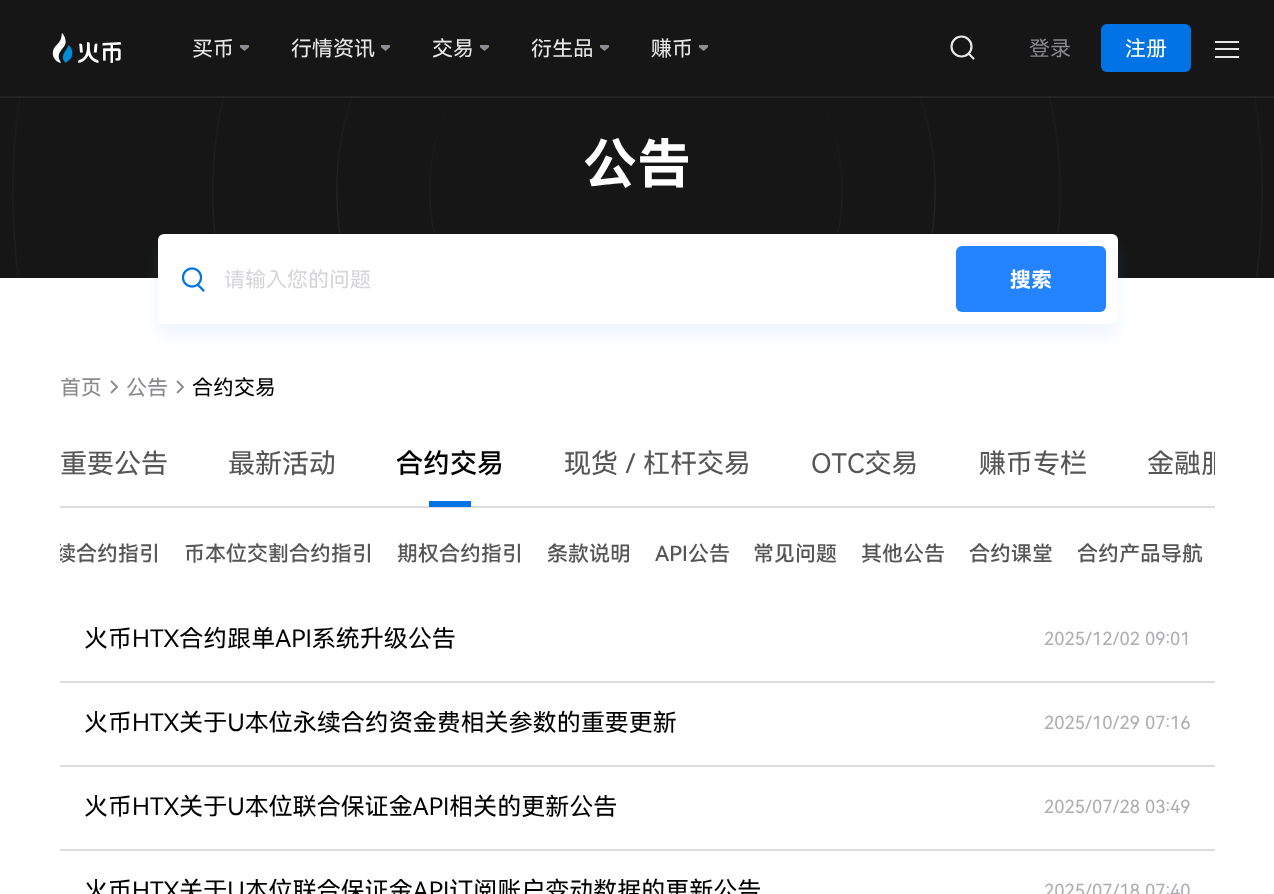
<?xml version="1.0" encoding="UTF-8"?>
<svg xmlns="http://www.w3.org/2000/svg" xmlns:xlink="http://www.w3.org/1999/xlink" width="1274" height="894">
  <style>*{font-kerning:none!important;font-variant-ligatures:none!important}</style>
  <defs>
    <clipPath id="clip1"><rect y="96" width="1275" height="182" /></clipPath>
    <linearGradient id="g1" gradientUnits="userSpaceOnUse" x1="638" y1="-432" x2="638" y2="818"><stop offset="0.27" stop-color="#161616" /><stop offset="0.51" stop-color="#1d1d1d" /></linearGradient>
    <linearGradient id="g2" gradientUnits="userSpaceOnUse" x1="636" y1="-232" x2="636" y2="615"><stop offset="0.27" stop-color="#161616" /><stop offset="0.51" stop-color="#1f1f1f" /></linearGradient>
    <linearGradient id="g3" gradientUnits="userSpaceOnUse" x1="636" y1="-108" x2="636" y2="491"><stop offset="0.27" stop-color="#161616" /><stop offset="0.51" stop-color="#222222" /></linearGradient>
    <linearGradient id="g4" gradientUnits="userSpaceOnUse" x1="636" y1="-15" x2="636" y2="398"><stop offset="0.27" stop-color="#161616" /><stop offset="0.51" stop-color="#1d1d1d" /></linearGradient>
    <clipPath id="clip2"><rect x="60" y="420" width="1155" height="87" /></clipPath>
    <clipPath id="clip3"><rect x="60" y="531" width="1155" height="45" /></clipPath>
  </defs>
  <rect width="100%" height="100%" fill="#ffffff" />
  <rect y="96" width="1274" height="182" fill="#161616" />
  <path d="M 111 381 l 6 6 l -6 6" fill="none" stroke="#8a8a8e" stroke-width="1.8" />
  <path d="M 177 381 l 6 6 l -6 6" fill="none" stroke="#8a8a8e" stroke-width="1.8" />
  <rect x="60" y="849" width="1155" height="2" fill="#dddddd" />
  <text x="60" y="395" style="font-family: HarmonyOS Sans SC; font-size: 21px; fill: #8a8a8e">首页</text>
  <text x="126" y="395" style="font-family: HarmonyOS Sans SC; font-size: 21px; fill: #8a8a8e">公告</text>
  <text x="192" y="395" style="font-family: HarmonyOS Sans SC; font-size: 21px; fill: #000000">合约交易</text>
  <g clip-path="url(#clip1)">
    <circle cx="637.5" cy="192.5" r="624.75" fill="none" stroke="url(#g1)" stroke-width="1.5" />
    <circle cx="636.5" cy="191.5" r="423.75" fill="none" stroke="url(#g2)" stroke-width="1.5" />
    <circle cx="636" cy="191" r="299.25" fill="none" stroke="url(#g3)" stroke-width="1.5" />
    <circle cx="636" cy="191" r="206.25" fill="none" stroke="url(#g4)" stroke-width="1.5" />
  </g>
  <rect width="1274" height="96" fill="#161616" />
  <rect x="1101" y="24" width="90" height="48" rx="6" fill="#0173e5" />
  <text x="1125" y="56" style="font-family: HarmonyOS Sans SC; font-size: 21px; fill: #ffffff">注册</text>
  <text x="1029" y="56" style="font-family: HarmonyOS Sans SC; font-size: 21px; fill: #8a8a8e">登录</text>
  <rect x="1215" y="56" width="24" height="2" fill="#e6e6e6" />
  <rect x="1215" y="48" width="24" height="2" fill="#e6e6e6" />
  <rect x="1215" y="41" width="24" height="2" fill="#e6e6e6" />
  <circle cx="961.5" cy="46.5" r="10" fill="none" stroke="#e6e6e6" stroke-width="2.2" />
  <path d="M 969 54 l 4.5 4.5" fill="none" stroke="#e6e6e6" stroke-width="2.2" stroke-linecap="round" />
  <text x="651" y="56" style="font-family: HarmonyOS Sans SC; font-size: 21px; fill: #e6e6e6">赚币</text>
  <text x="531" y="56" style="font-family: HarmonyOS Sans SC; font-size: 21px; fill: #e6e6e6">衍生品</text>
  <text x="432" y="56" style="font-family: HarmonyOS Sans SC; font-size: 21px; fill: #e6e6e6">交易</text>
  <text x="291" y="56" style="font-family: HarmonyOS Sans SC; font-size: 21px; fill: #e6e6e6">行情资讯</text>
  <text x="192" y="56" style="font-family: HarmonyOS Sans SC; font-size: 21px; fill: #e6e6e6">买币</text>
  <image x="699" y="45" width="9" height="6" xlink:href="image2.png" />
  <image x="600" y="45" width="9" height="6" xlink:href="image2.png" />
  <image x="480" y="45" width="9" height="6" xlink:href="image2.png" />
  <image x="381" y="45" width="9" height="6" xlink:href="image2.png" />
  <image x="240" y="45" width="9" height="6" xlink:href="image2.png" />
  <rect y="96" width="1274" height="2" fill="#ffffff" fill-opacity="0.06" />
  <image x="52" y="33" width="70" height="30" xlink:href="image1.png" />
  <rect x="158" y="246" width="960" height="90" rx="6" fill="#6ea6ff" fill-opacity="0.1" filter="blur(7.5px)" />
  <rect x="158" y="234" width="960" height="90" rx="6" fill="#ffffff" />
  <text x="224" y="287" style="font-family: HarmonyOS Sans SC; font-size: 21px; fill: #d6d6da">请输入您的问题</text>
  <image x="182" y="267" width="23" height="25" xlink:href="image3.png" />
  <rect x="956" y="246" width="150" height="66" rx="6" fill="#2483ff" />
  <text x="1010" y="287" style="font-family: HarmonyOS Sans SC; font-size: 21px; font-weight: bold; fill: #ffffff">搜索</text>
  <text x="583" y="183" style="font-family: HarmonyOS Sans SC; font-size: 54px; font-weight: bold; fill: #ffffff">公告</text>
  <text x="60" y="473" style="font-family: HarmonyOS Sans SC; font-size: 27px; fill: #565656">重要公告</text>
  <text x="228" y="473" style="font-family: HarmonyOS Sans SC; font-size: 27px; fill: #565656">最新活动</text>
  <text x="396" y="473" style="font-family: HarmonyOS Sans SC; font-size: 27px; font-weight: 500; fill: #000000">合约交易</text>
  <text x="564" y="473" style="font-family: HarmonyOS Sans SC; font-size: 27px; fill: #565656">现货 / 杠杆交易</text>
  <text x="811" y="473" style="font-family: HarmonyOS Sans SC; font-size: 27px; fill: #565656">OTC交易</text>
  <text x="979" y="473" style="font-family: HarmonyOS Sans SC; font-size: 27px; fill: #565656">赚币专栏</text>
  <g clip-path="url(#clip2)">
    <text x="1147" y="473" style="font-family: HarmonyOS Sans SC; font-size: 27px; fill: #565656">金融服</text>
  </g>
  <rect x="60" y="506" width="1155" height="2" fill="#dddddd" />
  <rect x="429" y="501" width="42" height="6" fill="#0173e5" />
  <g clip-path="url(#clip3)">
    <text x="55" y="561" style="font-family: HarmonyOS Sans SC; font-size: 21px; font-weight: 500; fill: #565656">续合约指引</text>
  </g>
  <text x="184" y="561" style="font-family: HarmonyOS Sans SC; font-size: 21px; font-weight: 500; fill: #565656">币本位交割合约指引</text>
  <text x="397" y="561" style="font-family: HarmonyOS Sans SC; font-size: 21px; font-weight: 500; fill: #565656">期权合约指引</text>
  <text x="547" y="561" style="font-family: HarmonyOS Sans SC; font-size: 21px; font-weight: 500; fill: #565656">条款说明</text>
  <text x="655" y="561" style="font-family: HarmonyOS Sans SC; font-size: 21px; font-weight: 500; fill: #565656">API公告</text>
  <text x="753" y="561" style="font-family: HarmonyOS Sans SC; font-size: 21px; font-weight: 500; fill: #565656">常见问题</text>
  <text x="861" y="561" style="font-family: HarmonyOS Sans SC; font-size: 21px; font-weight: 500; fill: #565656">其他公告</text>
  <text x="969" y="561" style="font-family: HarmonyOS Sans SC; font-size: 21px; font-weight: 500; fill: #565656">合约课堂</text>
  <text x="1077" y="561" style="font-family: HarmonyOS Sans SC; font-size: 21px; font-weight: 500; fill: #565656">合约产品导航</text>
  <rect x="60" y="681" width="1155" height="2" fill="#dddddd" />
  <text x="84" y="647" style="font-family: HarmonyOS Sans SC; font-size: 24px; fill: #000000">火币HTX合约跟单API系统升级公告</text>
  <text x="1044" y="645" style="font-family: HarmonyOS Sans SC; font-size: 18px; fill: #adadb4">2025/12/02 09:01</text>
  <rect x="60" y="765" width="1155" height="2" fill="#dddddd" />
  <text x="84" y="731" style="font-family: HarmonyOS Sans SC; font-size: 24px; fill: #000000">火币HTX关于U本位永续合约资金费相关参数的重要更新</text>
  <text x="1044" y="729" style="font-family: HarmonyOS Sans SC; font-size: 18px; fill: #adadb4">2025/10/29 07:16</text>
  <text x="84" y="815" style="font-family: HarmonyOS Sans SC; font-size: 24px; fill: #000000">火币HTX关于U本位联合保证金API相关的更新公告</text>
  <text x="1044" y="813" style="font-family: HarmonyOS Sans SC; font-size: 18px; fill: #adadb4">2025/07/28 03:49</text>
  <text x="84" y="899" style="font-family: HarmonyOS Sans SC; font-size: 24px; fill: #000000">火币HTX关于U本位联合保证金API订阅账户变动数据的更新公告</text>
  <text x="1044" y="897" style="font-family: HarmonyOS Sans SC; font-size: 18px; fill: #adadb4">2025/07/18 07:40</text>
</svg>
